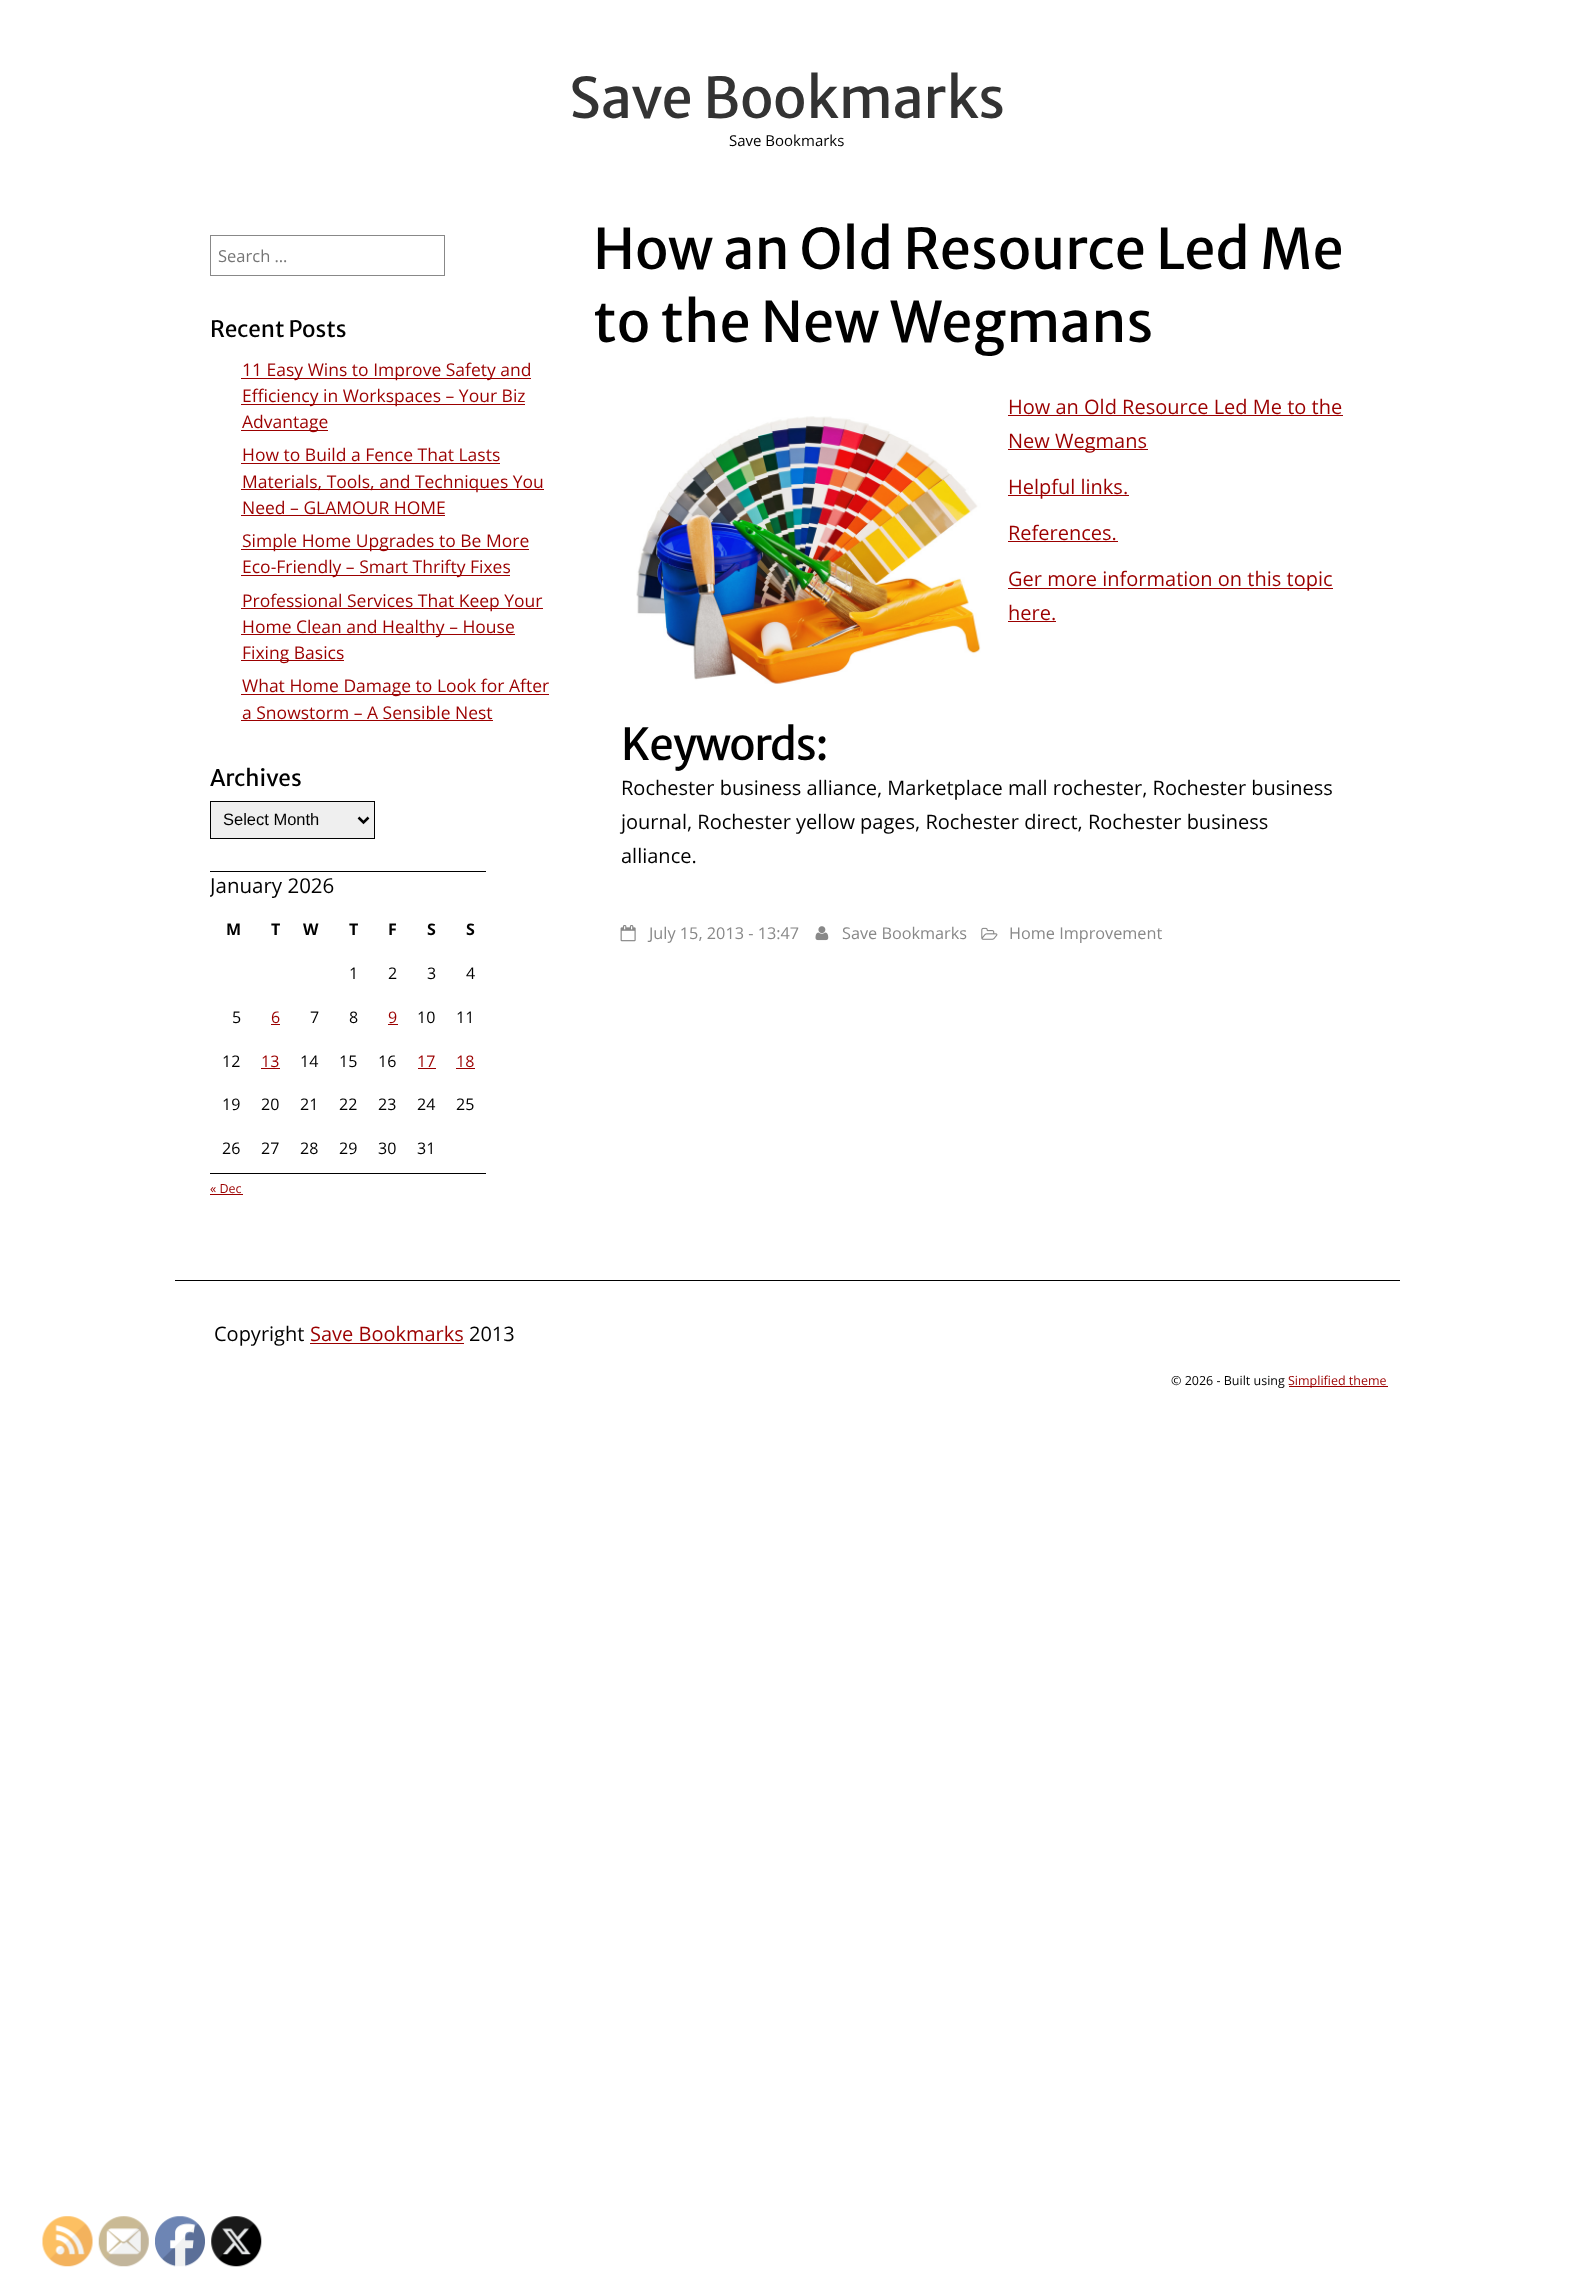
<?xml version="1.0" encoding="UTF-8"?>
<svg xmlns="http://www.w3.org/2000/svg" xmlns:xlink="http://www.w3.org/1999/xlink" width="1573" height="2274">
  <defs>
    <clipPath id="clip1"><rect x="210" y="235" width="345" height="995" /></clipPath>
  </defs>
  <rect width="100%" height="100%" fill="#ffffff" />
  <rect x="210.5" y="235.5" width="234" height="40" fill="none" stroke="#888888" />
  <rect x="241" y="378" width="290" height="1" fill="#9b0000" />
  <rect x="241" y="404" width="284" height="1" fill="#9b0000" />
  <rect x="241" y="430" width="87" height="1" fill="#9b0000" />
  <rect x="241" y="463" width="259" height="1" fill="#9b0000" />
  <rect x="241" y="489" width="303" height="1" fill="#9b0000" />
  <rect x="241" y="515" width="204" height="1" fill="#9b0000" />
  <rect x="241" y="549" width="288" height="1" fill="#9b0000" />
  <rect x="241" y="575" width="269" height="1" fill="#9b0000" />
  <rect x="241" y="608" width="302" height="1" fill="#9b0000" />
  <rect x="241" y="634" width="274" height="1" fill="#9b0000" />
  <rect x="241" y="660" width="103" height="1" fill="#9b0000" />
  <rect x="241" y="694" width="308" height="1" fill="#9b0000" />
  <rect x="241" y="720" width="252" height="1" fill="#9b0000" />
  <rect x="210.5" y="801.5" width="164" height="37" fill="#efefef" stroke="#000000" />
  <path d="M 358.5 817.5 l 5 5 l 5 -5" fill="none" stroke="#000000" stroke-width="2.5" />
  <rect x="210" y="871" width="276" height="1" fill="#000000" />
  <rect x="210" y="1173" width="276" height="1" fill="#000000" />
  <rect x="271" y="1024" width="9" height="1" fill="#9b0000" />
  <rect x="388" y="1024" width="10" height="1" fill="#9b0000" />
  <rect x="261" y="1068" width="19" height="1" fill="#9b0000" />
  <rect x="418" y="1068" width="18" height="1" fill="#9b0000" />
  <rect x="456" y="1068" width="19" height="1" fill="#9b0000" />
  <rect x="210" y="1194" width="33" height="1" fill="#9b0000" />
  <image x="636" y="416" width="345" height="268" xlink:href="image1.png" />
  <rect x="1008" y="415" width="335" height="1" fill="#9b0000" />
  <rect x="1008" y="449" width="140" height="1" fill="#9b0000" />
  <rect x="1008" y="495" width="121" height="1" fill="#9b0000" />
  <rect x="1008" y="541" width="110" height="1" fill="#9b0000" />
  <rect x="1008" y="588" width="325" height="1" fill="#9b0000" />
  <rect x="1008" y="621" width="48" height="1" fill="#9b0000" />
  <image x="620" y="925" width="16" height="17" xlink:href="image2.png" />
  <image x="815" y="926" width="14" height="15" xlink:href="image3.png" />
  <image x="981" y="927" width="17" height="13" xlink:href="image4.png" />
  <rect x="175" y="1280" width="1225" height="1" fill="#000000" />
  <rect x="310" y="1343" width="154" height="1" fill="#9b0000" />
  <rect x="1289" y="1386" width="99" height="1" fill="#9b0000" />
  <image x="42" y="2216" width="51" height="51" xlink:href="image5.png" />
  <image x="98" y="2216" width="51" height="51" xlink:href="image6.png" />
  <image x="155" y="2216" width="50" height="51" xlink:href="image7.png" />
  <image x="211" y="2216" width="51" height="51" xlink:href="image8.png" />
  <text x="569" y="118" style="font-family: Merriweather Sans; font-size: 56px; fill: #333333">Save Bookmarks</text>
  <text x="729" y="146" style="font-family: Open Sans; font-size: 15px; fill: #000000">Save Bookmarks</text>
  <text x="218" y="262" style="font-family: Open Sans; font-size: 16.5px; fill: #757575">Search …</text>
  <text x="210" y="337" style="font-family: Merriweather Sans; font-size: 22.5px; fill: #000000">Recent Posts</text>
  <text x="242" y="376" style="font-family: Open Sans; font-size: 17.5px; fill: #9b0000">11 Easy Wins to Improve Safety and</text>
  <text x="242" y="402" style="font-family: Open Sans; font-size: 17.5px; fill: #9b0000">Efficiency in Workspaces – Your Biz</text>
  <text x="242" y="428" style="font-family: Open Sans; font-size: 17.5px; fill: #9b0000">Advantage</text>
  <text x="242" y="461" style="font-family: Open Sans; font-size: 17.5px; fill: #9b0000">How to Build a Fence That Lasts</text>
  <text x="242" y="488" style="font-family: Open Sans; font-size: 17.5px; fill: #9b0000">Materials, Tools, and Techniques You</text>
  <text x="242" y="514" style="font-family: Open Sans; font-size: 17.5px; fill: #9b0000">Need – GLAMOUR HOME</text>
  <text x="242" y="547" style="font-family: Open Sans; font-size: 17.5px; fill: #9b0000">Simple Home Upgrades to Be More</text>
  <text x="242" y="573" style="font-family: Open Sans; font-size: 17.5px; fill: #9b0000">Eco-Friendly – Smart Thrifty Fixes</text>
  <text x="242" y="607" style="font-family: Open Sans; font-size: 17.5px; fill: #9b0000">Professional Services That Keep Your</text>
  <text x="242" y="633" style="font-family: Open Sans; font-size: 17.5px; fill: #9b0000">Home Clean and Healthy – House</text>
  <text x="242" y="659" style="font-family: Open Sans; font-size: 17.5px; fill: #9b0000">Fixing Basics</text>
  <text x="242" y="692" style="font-family: Open Sans; font-size: 17.5px; fill: #9b0000">What Home Damage to Look for After</text>
  <text x="242" y="719" style="font-family: Open Sans; font-size: 17.5px; fill: #9b0000">a Snowstorm – A Sensible Nest</text>
  <text x="210" y="786" style="font-family: Merriweather Sans; font-size: 22.5px; fill: #000000">Archives</text>
  <text x="223" y="825" style="font-family: Liberation Sans; font-size: 16.5px; fill: #000000">Select Month</text>
  <g clip-path="url(#clip1)">
    <text x="210" y="893" style="font-family: Open Sans; font-size: 20.5px; fill: #000000">January 2026</text>
  </g>
  <text x="226" y="935" style="font-family: Open Sans; font-size: 16px; font-weight: bold; fill: #000000">M</text>
  <text x="271" y="935" style="font-family: Open Sans; font-size: 16px; font-weight: bold; fill: #000000">T</text>
  <text x="303" y="935" style="font-family: Open Sans; font-size: 16px; font-weight: bold; fill: #000000">W</text>
  <text x="349" y="935" style="font-family: Open Sans; font-size: 16px; font-weight: bold; fill: #000000">T</text>
  <text x="388" y="935" style="font-family: Open Sans; font-size: 16px; font-weight: bold; fill: #000000">F</text>
  <text x="427" y="935" style="font-family: Open Sans; font-size: 16px; font-weight: bold; fill: #000000">S</text>
  <text x="466" y="935" style="font-family: Open Sans; font-size: 16px; font-weight: bold; fill: #000000">S</text>
  <text x="349" y="979" style="font-family: Open Sans; font-size: 16px; fill: #000000">1</text>
  <text x="388" y="979" style="font-family: Open Sans; font-size: 16px; fill: #000000">2</text>
  <text x="427" y="979" style="font-family: Open Sans; font-size: 16px; fill: #000000">3</text>
  <text x="466" y="979" style="font-family: Open Sans; font-size: 16px; fill: #000000">4</text>
  <text x="232" y="1023" style="font-family: Open Sans; font-size: 16px; fill: #000000">5</text>
  <text x="271" y="1023" style="font-family: Open Sans; font-size: 16px; fill: #9b0000">6</text>
  <text x="310" y="1023" style="font-family: Open Sans; font-size: 16px; fill: #000000">7</text>
  <text x="349" y="1023" style="font-family: Open Sans; font-size: 16px; fill: #000000">8</text>
  <text x="388" y="1023" style="font-family: Open Sans; font-size: 16px; fill: #9b0000">9</text>
  <text x="417" y="1023" style="font-family: Open Sans; font-size: 16px; fill: #000000">10</text>
  <text x="456" y="1023" style="font-family: Open Sans; font-size: 16px; fill: #000000">11</text>
  <text x="222" y="1067" style="font-family: Open Sans; font-size: 16px; fill: #000000">12</text>
  <text x="261" y="1067" style="font-family: Open Sans; font-size: 16px; fill: #9b0000">13</text>
  <text x="300" y="1067" style="font-family: Open Sans; font-size: 16px; fill: #000000">14</text>
  <text x="339" y="1067" style="font-family: Open Sans; font-size: 16px; fill: #000000">15</text>
  <text x="378" y="1067" style="font-family: Open Sans; font-size: 16px; fill: #000000">16</text>
  <text x="417" y="1067" style="font-family: Open Sans; font-size: 16px; fill: #9b0000">17</text>
  <text x="456" y="1067" style="font-family: Open Sans; font-size: 16px; fill: #9b0000">18</text>
  <text x="222" y="1110" style="font-family: Open Sans; font-size: 16px; fill: #000000">19</text>
  <text x="261" y="1110" style="font-family: Open Sans; font-size: 16px; fill: #000000">20</text>
  <text x="300" y="1110" style="font-family: Open Sans; font-size: 16px; fill: #000000">21</text>
  <text x="339" y="1110" style="font-family: Open Sans; font-size: 16px; fill: #000000">22</text>
  <text x="378" y="1110" style="font-family: Open Sans; font-size: 16px; fill: #000000">23</text>
  <text x="417" y="1110" style="font-family: Open Sans; font-size: 16px; fill: #000000">24</text>
  <text x="456" y="1110" style="font-family: Open Sans; font-size: 16px; fill: #000000">25</text>
  <text x="222" y="1154" style="font-family: Open Sans; font-size: 16px; fill: #000000">26</text>
  <text x="261" y="1154" style="font-family: Open Sans; font-size: 16px; fill: #000000">27</text>
  <text x="300" y="1154" style="font-family: Open Sans; font-size: 16px; fill: #000000">28</text>
  <text x="339" y="1154" style="font-family: Open Sans; font-size: 16px; fill: #000000">29</text>
  <text x="378" y="1154" style="font-family: Open Sans; font-size: 16px; fill: #000000">30</text>
  <text x="417" y="1154" style="font-family: Open Sans; font-size: 16px; fill: #000000">31</text>
  <text x="210" y="1193" style="font-family: Open Sans; font-size: 12.5px; fill: #9b0000">« Dec</text>
  <text x="593" y="269" style="font-family: Merriweather Sans; font-size: 56px; fill: #000000">How an Old Resource Led Me</text>
  <text x="593" y="342" style="font-family: Merriweather Sans; font-size: 56px; fill: #000000">to the New Wegmans</text>
  <text x="1008" y="414" style="font-family: Open Sans; font-size: 20px; fill: #9b0000">How an Old Resource Led Me to the</text>
  <text x="1008" y="448" style="font-family: Open Sans; font-size: 20px; fill: #9b0000">New Wegmans</text>
  <text x="1008" y="494" style="font-family: Open Sans; font-size: 20px; fill: #9b0000">Helpful links.</text>
  <text x="1008" y="540" style="font-family: Open Sans; font-size: 20px; fill: #9b0000">References.</text>
  <text x="1008" y="586" style="font-family: Open Sans; font-size: 20px; fill: #9b0000">Ger more information on this topic</text>
  <text x="1008" y="620" style="font-family: Open Sans; font-size: 20px; fill: #9b0000">here.</text>
  <text x="621" y="760" style="font-family: Merriweather Sans; font-size: 44px; letter-spacing: -1.25px; fill: #000000">Keywords:</text>
  <text x="621" y="795" style="font-family: Open Sans; font-size: 20px; fill: #000000">Rochester business alliance, Marketplace mall rochester, Rochester business</text>
  <text x="621" y="829" style="font-family: Open Sans; font-size: 20px; fill: #000000">journal, Rochester yellow pages, Rochester direct, Rochester business</text>
  <text x="621" y="863" style="font-family: Open Sans; font-size: 20px; fill: #000000">alliance.</text>
  <text x="649" y="939" style="font-family: Open Sans; font-size: 16.25px; fill: #888888">July 15, 2013 - 13:47</text>
  <text x="842" y="939" style="font-family: Open Sans; font-size: 16.25px; fill: #888888">Save Bookmarks</text>
  <text x="1009" y="939" style="font-family: Open Sans; font-size: 16.25px; fill: #888888">Home Improvement</text>
  <text x="214" y="1341" style="font-family: Open Sans; font-size: 20px; fill: #000000">Copyright</text>
  <text x="310" y="1341" style="font-family: Open Sans; font-size: 20px; fill: #9b0000">Save Bookmarks</text>
  <text x="469" y="1341" style="font-family: Open Sans; font-size: 20px; fill: #000000">2013</text>
  <text x="1171" y="1385" style="font-family: Open Sans; font-size: 12.5px; fill: #000000">© 2026 - Built using</text>
  <text x="1288" y="1385" style="font-family: Open Sans; font-size: 12.5px; fill: #9b0000">Simplified theme</text>
</svg>
